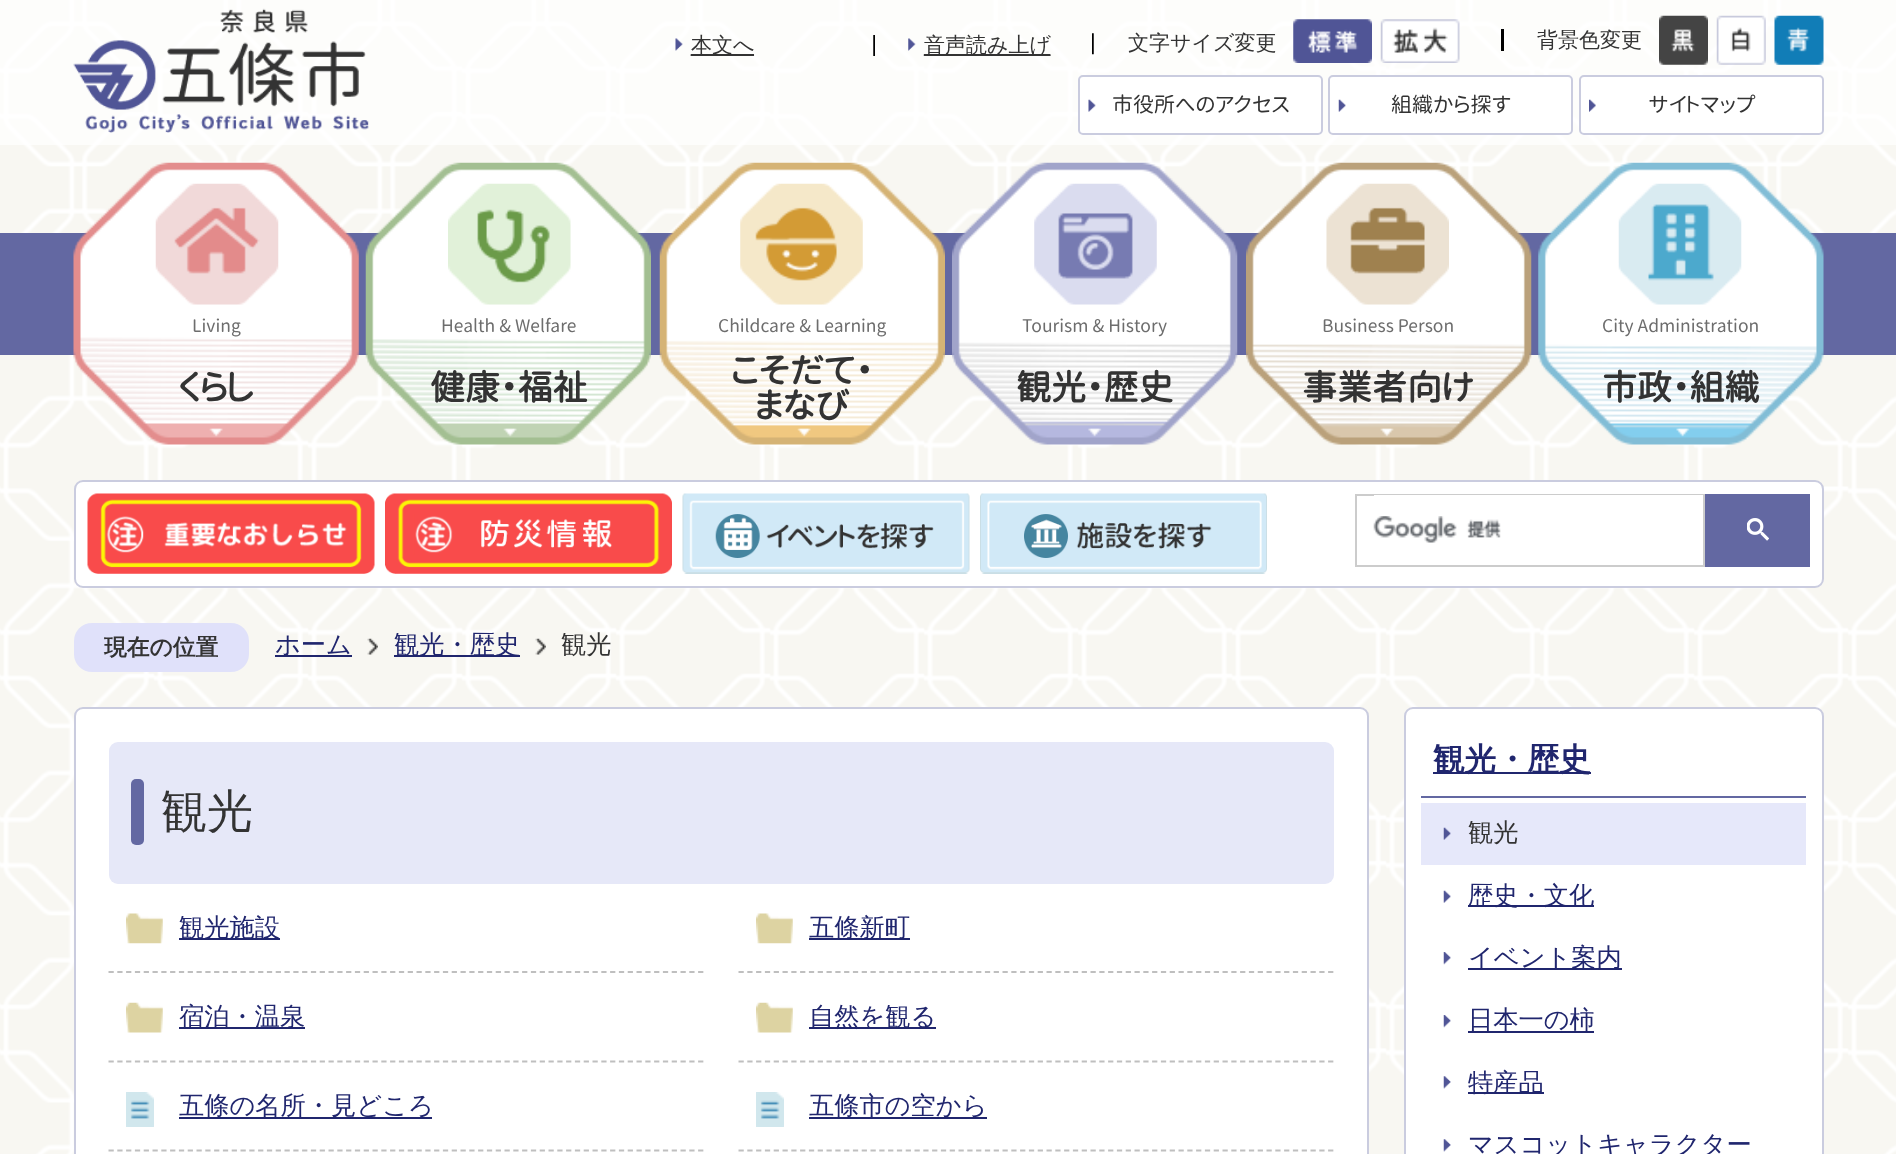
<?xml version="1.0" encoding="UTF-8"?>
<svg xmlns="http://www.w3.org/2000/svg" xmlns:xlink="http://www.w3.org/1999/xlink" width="1896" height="1154">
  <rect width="100%" height="100%" fill="#f8f7f2" />
  <image x="0" y="0" width="1896" height="1154" xlink:href="image1.png" />
  <rect width="1896" height="145" fill="#ffffff" fill-opacity="0.7" />
  <image x="73" y="8" width="296" height="125" xlink:href="image2.png" />
  <image x="675" y="38" width="80" height="18" xlink:href="image3.png" />
  <rect x="691" y="54" width="63" height="1" fill="#333333" />
  <image x="873" y="35" width="2" height="21" xlink:href="image4.png" />
  <image x="908" y="38" width="143" height="18" xlink:href="image5.png" />
  <rect x="924" y="54" width="126" height="1" fill="#333333" />
  <image x="1092" y="33" width="2" height="22" xlink:href="image6.png" />
  <image x="1293" y="19" width="79" height="44" xlink:href="image7.png" />
  <image x="1380" y="19" width="80" height="44" xlink:href="image8.png" />
  <rect x="1501" y="29" width="3" height="22" fill="#000000" />
  <image x="1659" y="15" width="49" height="50" xlink:href="image9.png" />
  <image x="1716" y="15" width="50" height="50" xlink:href="image10.png" />
  <image x="1774" y="15" width="50" height="50" xlink:href="image11.png" />
  <rect x="1078" y="75" width="245" height="60" rx="5" fill="#ffffff" />
  <image x="1088" y="99" width="8" height="13" xlink:href="image12.png" />
  <rect x="1079" y="76" width="243" height="58" rx="4" fill="none" stroke="#caccdf" stroke-width="2" />
  <rect x="1328" y="75" width="245" height="60" rx="5" fill="#ffffff" />
  <image x="1338" y="99" width="8" height="13" xlink:href="image13.png" />
  <rect x="1329" y="76" width="243" height="58" rx="4" fill="none" stroke="#caccdf" stroke-width="2" />
  <rect x="1579" y="75" width="245" height="60" rx="5" fill="#ffffff" />
  <image x="1589" y="99" width="7" height="13" xlink:href="image14.png" />
  <rect x="1580" y="76" width="243" height="58" rx="4" fill="none" stroke="#caccdf" stroke-width="2" />
  <rect y="233" width="1896" height="122" fill="#6368a2" />
  <image x="73" y="162" width="286" height="283" xlink:href="image15.png" />
  <image x="365" y="162" width="286" height="283" xlink:href="image16.png" />
  <image x="659" y="162" width="286" height="283" xlink:href="image17.png" />
  <image x="952" y="162" width="286" height="283" xlink:href="image18.png" />
  <image x="1246" y="162" width="286" height="283" xlink:href="image19.png" />
  <image x="1538" y="162" width="286" height="283" xlink:href="image20.png" />
  <rect x="74" y="480" width="1750" height="108" rx="9" fill="#ffffff" />
  <rect x="75" y="481" width="1748" height="106" rx="8" fill="none" stroke="#505596" stroke-opacity="0.3" stroke-width="2" />
  <image x="87" y="493" width="288" height="81" xlink:href="image21.png" />
  <image x="385" y="493" width="287" height="81" xlink:href="image22.png" />
  <image x="682" y="493" width="288" height="81" xlink:href="image23.png" />
  <image x="980" y="493" width="287" height="81" xlink:href="image24.png" />
  <rect x="1356" y="495" width="348" height="71" fill="none" stroke="#cccccc" stroke-width="2" />
  <rect x="1374" y="495" width="329" height="1" fill="#ffffff" />
  <image x="1373" y="516" width="128" height="27" xlink:href="image25.png" />
  <rect x="1705" y="494" width="105" height="73" fill="#6368a2" />
  <image x="1747" y="518" width="22" height="23" xlink:href="image26.png" />
  <rect x="74" y="623" width="175" height="49" rx="18" fill="#e0e1fa" />
  <rect x="275" y="655" width="77" height="2" fill="#20266e" />
  <image x="367" y="638" width="11" height="17" xlink:href="image27.png" />
  <rect x="394" y="655" width="126" height="2" fill="#20266e" />
  <image x="535" y="638" width="11" height="17" xlink:href="image27.png" />
  <rect x="74" y="707" width="1295" height="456" rx="9" fill="#ffffff" />
  <rect x="75" y="708" width="1293" height="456" rx="8" fill="none" stroke="#505596" stroke-opacity="0.3" stroke-width="2" />
  <rect x="109" y="742" width="1225" height="142" rx="9" fill="#e6e8f8" />
  <rect x="131" y="779" width="13" height="66" rx="5" fill="#6368a2" />
  <image x="126" y="913" width="37" height="31" xlink:href="image28.png" />
  <path d="M 108.5 972 h 595" fill="none" stroke="#bfbfbf" stroke-width="1.8" stroke-dasharray="5.25 3.55" />
  <rect x="179" y="938" width="101" height="2" fill="#20266e" />
  <image x="756" y="913" width="37" height="31" xlink:href="image29.png" />
  <path d="M 738.5 972 h 595" fill="none" stroke="#bfbfbf" stroke-width="1.8" stroke-dasharray="5.25 3.55" />
  <rect x="809" y="938" width="101" height="2" fill="#20266e" />
  <image x="126" y="1002" width="37" height="31" xlink:href="image30.png" />
  <path d="M 108.5 1061.5 h 595" fill="none" stroke="#bfbfbf" stroke-width="1.8" stroke-dasharray="5.25 3.55" />
  <rect x="179" y="1027" width="126" height="2" fill="#20266e" />
  <image x="756" y="1002" width="37" height="31" xlink:href="image31.png" />
  <path d="M 738.5 1061.5 h 595" fill="none" stroke="#bfbfbf" stroke-width="1.8" stroke-dasharray="5.25 3.55" />
  <rect x="809" y="1027" width="127" height="2" fill="#20266e" />
  <image x="126" y="1092" width="28" height="35" xlink:href="image32.png" />
  <path d="M 108.5 1150.5 h 595" fill="none" stroke="#bfbfbf" stroke-width="1.8" stroke-dasharray="5.25 3.55" />
  <rect x="179" y="1117" width="253" height="2" fill="#20266e" />
  <image x="756" y="1092" width="28" height="35" xlink:href="image32.png" />
  <path d="M 738.5 1150.5 h 595" fill="none" stroke="#bfbfbf" stroke-width="1.8" stroke-dasharray="5.25 3.55" />
  <rect x="809" y="1117" width="178" height="2" fill="#20266e" />
  <rect x="1404" y="707" width="420" height="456" rx="9" fill="#ffffff" />
  <rect x="1405" y="708" width="418" height="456" rx="8" fill="none" stroke="#505596" stroke-opacity="0.3" stroke-width="2" />
  <rect x="1421" y="796" width="385" height="2" fill="#6368a2" />
  <rect x="1433" y="772" width="158" height="2" fill="#20266e" />
  <rect x="1421" y="803" width="385" height="62" fill="#e6e8fa" />
  <image x="1443" y="827" width="8" height="13" xlink:href="image33.png" />
  <image x="1443" y="890" width="8" height="13" xlink:href="image13.png" />
  <rect x="1468" y="905" width="126" height="2" fill="#20266e" />
  <image x="1443" y="952" width="8" height="13" xlink:href="image34.png" />
  <rect x="1468" y="968" width="154" height="2" fill="#20266e" />
  <image x="1443" y="1015" width="8" height="13" xlink:href="image34.png" />
  <rect x="1468" y="1031" width="126" height="2" fill="#20266e" />
  <image x="1443" y="1076" width="8" height="13" xlink:href="image35.png" />
  <rect x="1468" y="1092" width="76" height="2" fill="#20266e" />
  <image x="1443" y="1139" width="8" height="13" xlink:href="image35.png" />
  <text x="691" y="52" style="font-family: WenQuanYi Zen Hei; font-size: 21px; font-weight: 500; fill: #333333">本文へ</text>
  <text x="924" y="52" style="font-family: WenQuanYi Zen Hei; font-size: 21px; font-weight: 500; fill: #333333">音声読み上げ</text>
  <text x="1128" y="50" style="font-family: WenQuanYi Zen Hei; font-size: 21px; font-weight: 500; fill: #333333">文字サイズ変更</text>
  <text x="1537" y="47" style="font-family: WenQuanYi Zen Hei; font-size: 21px; font-weight: 500; fill: #333333">背景色変更</text>
  <text x="1112" y="112" style="font-family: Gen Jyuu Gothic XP; font-size: 21px; fill: #333333">市役所へのアクセス</text>
  <text x="1391" y="112" style="font-family: Gen Jyuu Gothic XP; font-size: 21px; fill: #333333">組織から探す</text>
  <text x="1648" y="112" style="font-family: Gen Jyuu Gothic XP; font-size: 21px; fill: #333333">サイトマップ</text>
  <text x="192" y="332" style="font-family: Gen Jyuu Gothic XP; font-size: 17.5px; fill: #6d6d6d">Living</text>
  <text x="178" y="400" style="font-family: Gen Jyuu Gothic XP; font-size: 35px; font-weight: bold; fill: #333333">くらし</text>
  <text x="441" y="332" style="font-family: Gen Jyuu Gothic XP; font-size: 17.5px; fill: #6d6d6d">Health &amp; Welfare</text>
  <text x="430" y="400" style="font-family: Gen Jyuu Gothic XP; font-size: 35px; font-weight: bold; fill: #333333">健康・福祉</text>
  <text x="718" y="332" style="font-family: Gen Jyuu Gothic XP; font-size: 17.5px; fill: #6d6d6d">Childcare &amp; Learning</text>
  <text x="731" y="383" style="font-family: Gen Jyuu Gothic XP; font-size: 35px; font-weight: bold; fill: #333333">こそだて・</text>
  <text x="755" y="418" style="font-family: Gen Jyuu Gothic XP; font-size: 35px; font-weight: bold; fill: #333333">まなび</text>
  <text x="1022" y="332" style="font-family: Gen Jyuu Gothic XP; font-size: 17.5px; fill: #6d6d6d">Tourism &amp; History</text>
  <text x="1016" y="400" style="font-family: Gen Jyuu Gothic XP; font-size: 35px; font-weight: bold; fill: #333333">観光・歴史</text>
  <text x="1322" y="332" style="font-family: Gen Jyuu Gothic XP; font-size: 17.5px; fill: #6d6d6d">Business Person</text>
  <text x="1302" y="400" style="font-family: Gen Jyuu Gothic XP; font-size: 35px; font-weight: bold; fill: #333333">事業者向け</text>
  <text x="1602" y="332" style="font-family: Gen Jyuu Gothic XP; font-size: 17.5px; fill: #6d6d6d">City Administration</text>
  <text x="1602" y="400" style="font-family: Gen Jyuu Gothic XP; font-size: 35px; font-weight: bold; fill: #333333">市政・組織</text>
  <text x="104" y="655" style="font-family: WenQuanYi Zen Hei; font-size: 22.75px; font-weight: bold; fill: #333333">現在の位置</text>
  <text x="275" y="653" style="font-family: WenQuanYi Zen Hei; font-size: 25.25px; font-weight: 500; fill: #20266e">ホーム</text>
  <text x="394" y="653" style="font-family: WenQuanYi Zen Hei; font-size: 25.25px; font-weight: 500; fill: #20266e">観光・歴史</text>
  <text x="561" y="653" style="font-family: WenQuanYi Zen Hei; font-size: 25.25px; font-weight: 500; fill: #333333">観光</text>
  <text x="161" y="827" style="font-family: WenQuanYi Zen Hei; font-size: 46px; font-weight: 500; fill: #333333">観光</text>
  <text x="179" y="936" style="font-family: WenQuanYi Zen Hei; font-size: 25.25px; font-weight: 500; fill: #20266e">観光施設</text>
  <text x="809" y="936" style="font-family: WenQuanYi Zen Hei; font-size: 25.25px; font-weight: 500; fill: #20266e">五條新町</text>
  <text x="179" y="1025" style="font-family: WenQuanYi Zen Hei; font-size: 25.25px; font-weight: 500; fill: #20266e">宿泊・温泉</text>
  <text x="809" y="1025" style="font-family: WenQuanYi Zen Hei; font-size: 25.25px; font-weight: 500; fill: #20266e">自然を観る</text>
  <text x="179" y="1114" style="font-family: WenQuanYi Zen Hei; font-size: 25.25px; font-weight: 500; fill: #20266e">五條の名所・見どころ</text>
  <text x="809" y="1114" style="font-family: WenQuanYi Zen Hei; font-size: 25.25px; font-weight: 500; fill: #20266e">五條市の空から</text>
  <text x="1433" y="770" style="font-family: WenQuanYi Zen Hei; font-size: 31.5px; font-weight: bold; fill: #20266e">観光・歴史</text>
  <text x="1468" y="841" style="font-family: WenQuanYi Zen Hei; font-size: 25.25px; font-weight: 500; fill: #333333">観光</text>
  <text x="1468" y="904" style="font-family: WenQuanYi Zen Hei; font-size: 25.25px; font-weight: 500; fill: #20266e">歴史・文化</text>
  <text x="1468" y="966" style="font-family: WenQuanYi Zen Hei; font-size: 25.25px; font-weight: 500; fill: #20266e">イベント案内</text>
  <text x="1468" y="1028" style="font-family: WenQuanYi Zen Hei; font-size: 25.25px; font-weight: 500; fill: #20266e">日本一の柿</text>
  <text x="1468" y="1091" style="font-family: WenQuanYi Zen Hei; font-size: 25.25px; font-weight: 500; fill: #20266e">特産品</text>
  <text x="1468" y="1153" style="font-family: WenQuanYi Zen Hei; font-size: 25.25px; font-weight: 500; fill: #20266e">マスコットキャラクター</text>
</svg>
